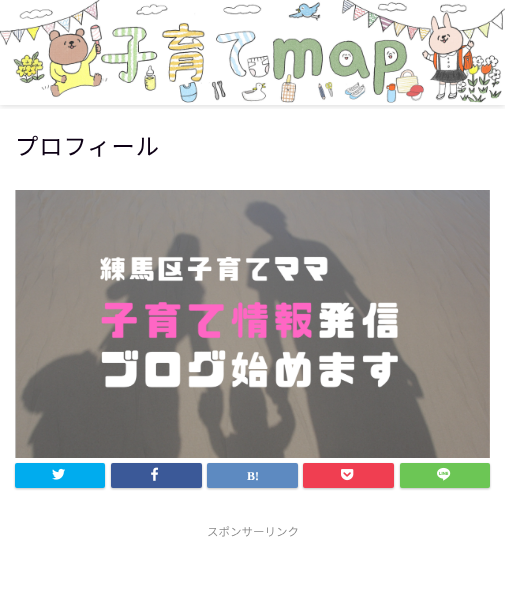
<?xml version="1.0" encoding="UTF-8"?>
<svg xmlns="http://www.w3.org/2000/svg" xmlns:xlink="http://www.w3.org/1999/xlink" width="505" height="606">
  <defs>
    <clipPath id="clip1"><rect x="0" y="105" width="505" height="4" /></clipPath>
  </defs>
  <rect width="100%" height="100%" fill="#ffffff" />
  <g clip-path="url(#clip1)">
    <rect y="1" width="505" height="105" fill="#000000" fill-opacity="0.15" filter="blur(3px)" />
  </g>
  <image x="0" y="0" width="505" height="103" xlink:href="image1.png" />
  <image x="15" y="190" width="475" height="268" xlink:href="image2.png" />
  <rect x="15" y="464" width="90" height="25" rx="2" fill="#000000" fill-opacity="0.25" filter="blur(1px)" />
  <rect x="16" y="464" width="88" height="23" rx="1" fill="#00acee" stroke="#00acee" stroke-width="2" />
  <image x="52" y="468" width="13" height="12" xlink:href="image3.png" />
  <rect x="111" y="464" width="91" height="25" rx="2" fill="#000000" fill-opacity="0.25" filter="blur(1px)" />
  <rect x="112" y="464" width="89" height="23" rx="1" fill="#3b5998" stroke="#3b5998" stroke-width="2" />
  <image x="151" y="467" width="8" height="14" xlink:href="image4.png" />
  <rect x="207" y="464" width="91" height="25" rx="2" fill="#000000" fill-opacity="0.25" filter="blur(1px)" />
  <rect x="208" y="464" width="89" height="23" rx="1" fill="#5d8ac1" stroke="#5d8ac1" stroke-width="2" />
  <rect x="303" y="464" width="91" height="25" rx="2" fill="#000000" fill-opacity="0.25" filter="blur(1px)" />
  <rect x="304" y="464" width="89" height="23" rx="1" fill="#f03e51" stroke="#f03e51" stroke-width="2" />
  <image x="341" y="469" width="13" height="12" xlink:href="image5.png" />
  <rect x="400" y="464" width="90" height="25" rx="2" fill="#000000" fill-opacity="0.25" filter="blur(1px)" />
  <rect x="401" y="464" width="88" height="23" rx="1" fill="#6cc655" stroke="#6cc655" stroke-width="2" />
  <image x="437" y="467" width="14" height="14" xlink:href="image6.png" />
  <text x="15" y="155" style="font-family: Noto Sans JP; font-size: 23.25px; letter-spacing: 1px; fill: #0d0015">プロフィール</text>
  <text x="247" y="480" style="font-family: Liberation Serif; font-size: 12px; font-weight: bold; fill: #ffffff">B!</text>
  <text x="207" y="536" style="font-family: Noto Sans JP; font-size: 11.5px; font-weight: 300; fill: #888888">スポンサーリンク</text>
</svg>
